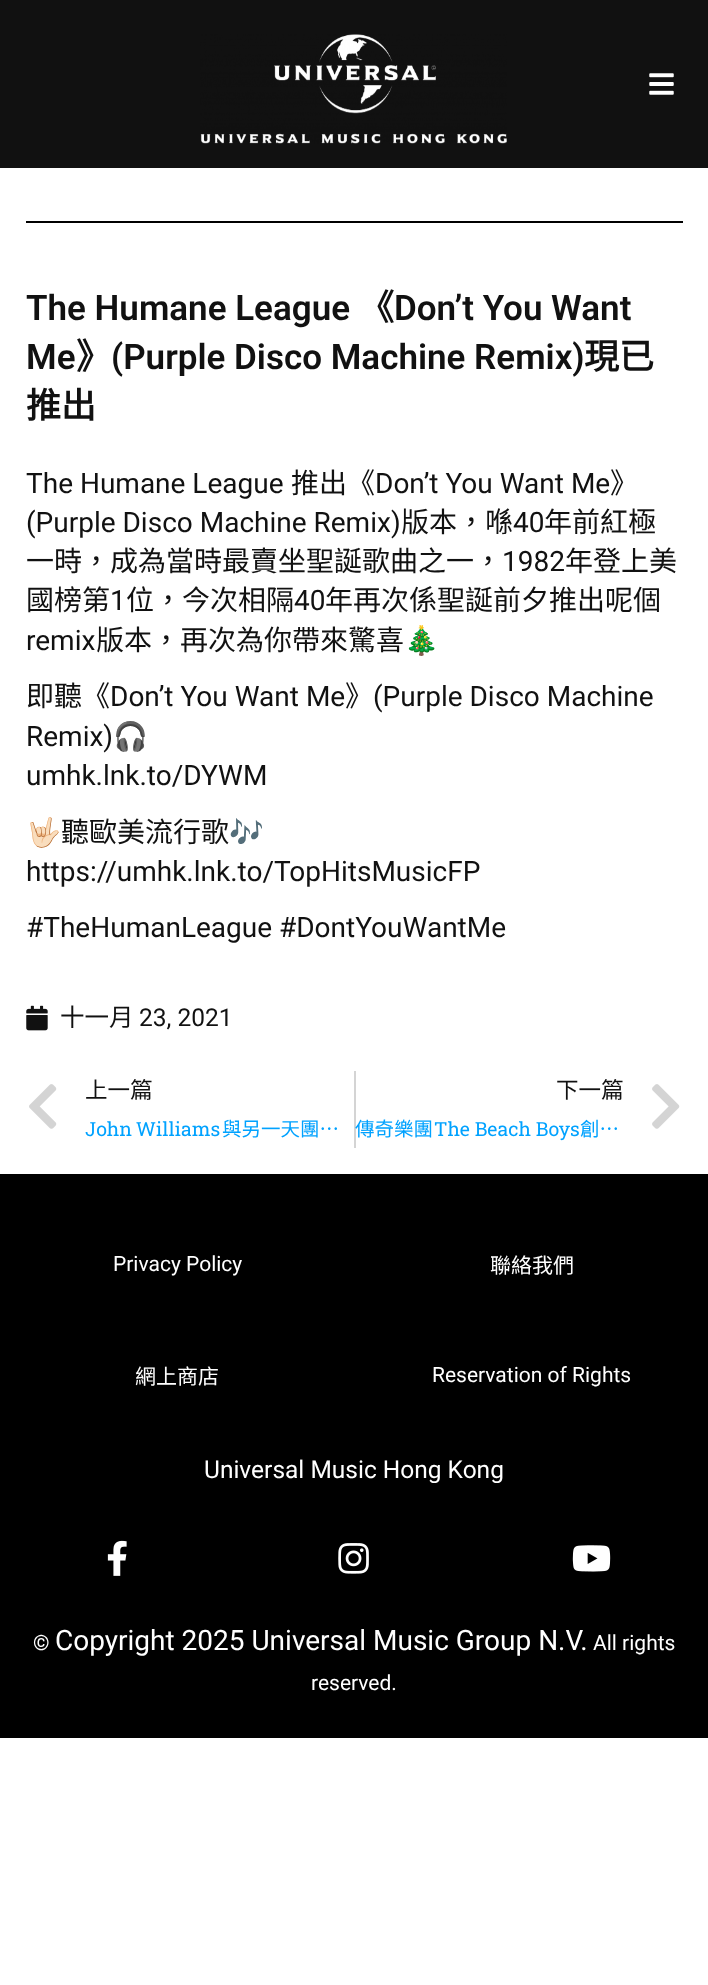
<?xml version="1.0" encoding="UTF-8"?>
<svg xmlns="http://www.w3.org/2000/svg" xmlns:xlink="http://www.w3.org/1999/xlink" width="708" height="1985">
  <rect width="100%" height="100%" fill="#ffffff" />
  <rect width="708" height="168" fill="#111111" />
  <image x="200" y="34" width="307" height="110" xlink:href="image1.png" />
  <image x="649" y="73" width="25" height="22" xlink:href="image2.png" />
  <rect x="26" y="221" width="657" height="2" fill="#000000" />
  <image x="26" y="1005" width="22" height="26" xlink:href="image3.png" />
  <image x="29" y="1084" width="28" height="45" xlink:href="image4.png" />
  <rect x="354" y="1071" width="2" height="77" fill="#d4d4d4" />
  <image x="652" y="1084" width="28" height="45" xlink:href="image5.png" />
  <rect y="1174" width="708" height="564" fill="#000000" />
  <image x="107" y="1540" width="20" height="36" xlink:href="image6.png" />
  <image x="338" y="1543" width="31" height="31" xlink:href="image7.png" />
  <image x="572" y="1545" width="39" height="27" xlink:href="image8.png" />
  <text x="26" y="320" style="font-family: Roboto; font-size: 35px; font-weight: 600; fill: #111111">The Humane League</text>
  <text x="359" y="320" style="font-family: Noto Sans CJK HK; font-size: 35px; font-weight: bold; fill: #111111">《</text>
  <text x="394" y="320" style="font-family: Roboto; font-size: 35px; font-weight: 600; fill: #111111">Don’t You Want</text>
  <text x="26" y="369" style="font-family: Roboto; font-size: 35px; font-weight: 600; fill: #111111">Me</text>
  <text x="76" y="369" style="font-family: Noto Sans CJK HK; font-size: 35px; font-weight: bold; fill: #111111">》</text>
  <text x="111" y="369" style="font-family: Roboto; font-size: 35px; font-weight: 600; fill: #111111">(Purple Disco Machine Remix)</text>
  <text x="584" y="369" style="font-family: Noto Sans CJK HK; font-size: 35px; font-weight: bold; fill: #111111">現已</text>
  <text x="26" y="418" style="font-family: Noto Sans CJK HK; font-size: 35px; font-weight: bold; fill: #111111">推出</text>
  <text x="26" y="493" style="font-family: Roboto; font-size: 28px; fill: #111111">The Humane League</text>
  <text x="291" y="493" style="font-family: Noto Sans CJK HK; font-size: 28px; fill: #111111">推出《</text>
  <text x="375" y="493" style="font-family: Roboto; font-size: 28px; fill: #111111">Don’t You Want Me</text>
  <text x="610" y="493" style="font-family: Noto Sans CJK HK; font-size: 28px; fill: #111111">》</text>
  <text x="26" y="532" style="font-family: Roboto; font-size: 28px; fill: #111111">(Purple Disco Machine Remix)</text>
  <text x="401" y="532" style="font-family: Noto Sans CJK HK; font-size: 28px; fill: #111111">版本，喺</text>
  <text x="513" y="532" style="font-family: Roboto; font-size: 28px; fill: #111111">40</text>
  <text x="544" y="532" style="font-family: Noto Sans CJK HK; font-size: 28px; fill: #111111">年前紅極</text>
  <text x="26" y="571" style="font-family: Noto Sans CJK HK; font-size: 28px; fill: #111111">一時，成為當時最賣坐聖誕歌曲之一，</text>
  <text x="502" y="571" style="font-family: Roboto; font-size: 28px; fill: #111111">1982</text>
  <text x="565" y="571" style="font-family: Noto Sans CJK HK; font-size: 28px; fill: #111111">年登上美</text>
  <text x="26" y="610" style="font-family: Noto Sans CJK HK; font-size: 28px; fill: #111111">國榜第</text>
  <text x="110" y="610" style="font-family: Roboto; font-size: 28px; fill: #111111">1</text>
  <text x="126" y="610" style="font-family: Noto Sans CJK HK; font-size: 28px; fill: #111111">位，今次相隔</text>
  <text x="294" y="610" style="font-family: Roboto; font-size: 28px; fill: #111111">40</text>
  <text x="325" y="610" style="font-family: Noto Sans CJK HK; font-size: 28px; fill: #111111">年再次係聖誕前夕推出呢個</text>
  <text x="26" y="650" style="font-family: Roboto; font-size: 28px; fill: #111111">remix</text>
  <text x="96" y="650" style="font-family: Noto Sans CJK HK; font-size: 28px; fill: #111111">版本，再次為你帶來驚喜</text>
  <text x="404" y="650" style="font-family: Noto Color Emoji; font-size: 28px; fill: #111111">🎄</text>
  <text x="26" y="706" style="font-family: Noto Sans CJK HK; font-size: 28px; fill: #111111">即聽《</text>
  <text x="110" y="706" style="font-family: Roboto; font-size: 28px; fill: #111111">Don’t You Want Me</text>
  <text x="345" y="706" style="font-family: Noto Sans CJK HK; font-size: 28px; fill: #111111">》</text>
  <text x="373" y="706" style="font-family: Roboto; font-size: 28px; fill: #111111">(Purple Disco Machine</text>
  <text x="26" y="746" style="font-family: Roboto; font-size: 28px; fill: #111111">Remix)</text>
  <text x="113" y="746" style="font-family: Noto Color Emoji; font-size: 28px; fill: #111111">🎧</text>
  <text x="26" y="785" style="font-family: Roboto; font-size: 28px; fill: #111111">umhk.lnk.to/DYWM</text>
  <text x="26" y="842" style="font-family: Noto Color Emoji; font-size: 28px; fill: #111111">🤟🏻</text>
  <text x="61" y="842" style="font-family: Noto Sans CJK HK; font-size: 28px; fill: #111111">聽歐美流行歌</text>
  <text x="229" y="842" style="font-family: Noto Color Emoji; font-size: 28px; fill: #111111">🎶</text>
  <text x="26" y="881" style="font-family: Roboto; font-size: 28px; fill: #111111">https://umhk.lnk.to/TopHitsMusicFP</text>
  <text x="26" y="937" style="font-family: Roboto; font-size: 28px; fill: #111111">#TheHumanLeague #DontYouWantMe</text>
  <text x="60" y="1026" style="font-family: Noto Sans CJK HK; font-size: 24.5px; fill: #111111">十一月</text>
  <text x="139" y="1026" style="font-family: Roboto; font-size: 24.5px; fill: #111111">23, 2021</text>
  <text x="85" y="1098" style="font-family: Noto Sans CJK HK; font-size: 22.5px; fill: #111111">上一篇</text>
  <text x="85" y="1136" word-spacing="-1" style="font-family: Roboto Slab; font-size: 19.5px; fill: #00a2ff">John Williams</text>
  <text x="222" y="1136" style="font-family: Noto Sans CJK HK; font-size: 19.5px; fill: #00a2ff">與另一天團…</text>
  <text x="556" y="1098" style="font-family: Noto Sans CJK HK; font-size: 22.5px; fill: #111111">下一篇</text>
  <text x="355" y="1136" style="font-family: Noto Sans CJK HK; font-size: 19.5px; fill: #00a2ff">傳奇樂團</text>
  <text x="434" y="1136" style="font-family: Roboto Slab; font-size: 19.5px; fill: #00a2ff">The Beach Boys</text>
  <text x="580" y="1136" style="font-family: Noto Sans CJK HK; font-size: 19.5px; fill: #00a2ff">創…</text>
  <text x="113" y="1271" style="font-family: Roboto; font-size: 21px; fill: #ffffff">Privacy Policy</text>
  <text x="490" y="1273" style="font-family: Noto Sans CJK HK; font-size: 21px; fill: #ffffff">聯絡我們</text>
  <text x="135" y="1384" style="font-family: Noto Sans CJK HK; font-size: 21px; fill: #ffffff">網上商店</text>
  <text x="432" y="1382" style="font-family: Roboto; font-size: 21px; fill: #ffffff">Reservation of Rights</text>
  <text x="204" y="1478" style="font-family: Roboto; font-size: 24.5px; fill: #ffffff">Universal Music Hong Kong</text>
  <text x="33" y="1650" style="font-family: Roboto; font-size: 21px; fill: #ffffff">©</text>
  <text x="55" y="1650" style="font-family: Roboto; font-size: 28px; fill: #ffffff">Copyright 2025 Universal Music Group N.V.</text>
  <text x="593" y="1650" style="font-family: Roboto; font-size: 21px; fill: #ffffff">All rights</text>
  <text x="311" y="1690" style="font-family: Roboto; font-size: 21px; fill: #ffffff">reserved.</text>
</svg>
